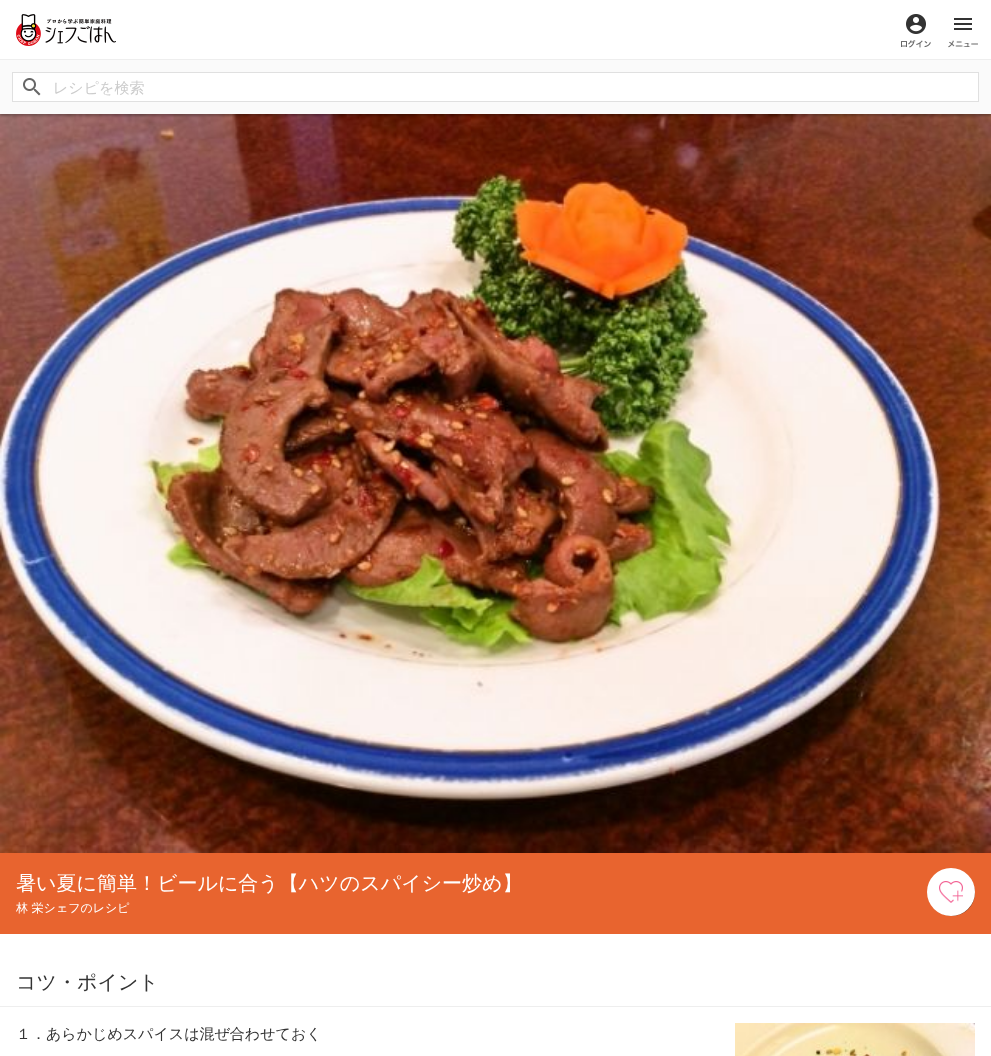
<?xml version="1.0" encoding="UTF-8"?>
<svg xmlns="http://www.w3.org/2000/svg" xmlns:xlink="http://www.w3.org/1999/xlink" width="991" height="1056">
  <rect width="100%" height="100%" fill="#ffffff" />
  <image x="0" y="114" width="991" height="739" xlink:href="image7.png" />
  <rect y="2" width="991" height="114" fill="#000000" fill-opacity="0.25" filter="blur(1px)" />
  <rect width="991" height="59" fill="#ffffff" />
  <rect y="59" width="991" height="1" fill="#eeeeee" />
  <image x="16" y="14" width="100" height="32" xlink:href="image1.png" />
  <image x="906" y="14" width="20" height="20" xlink:href="image2.png" />
  <image x="901" y="40" width="30" height="8" xlink:href="image3.png" />
  <image x="954" y="18" width="18" height="12" xlink:href="image4.png" />
  <image x="948" y="40" width="30" height="8" xlink:href="image5.png" />
  <rect y="60" width="991" height="54" fill="#fafafa" />
  <rect x="13" y="73" width="965" height="28" fill="#ffffff" />
  <image x="23" y="78" width="18" height="18" xlink:href="image6.png" />
  <rect x="12.5" y="72.5" width="966" height="29" fill="none" stroke="#e0e0e0" />
  <rect y="853" width="991" height="81" fill="#e8642f" />
  <rect x="929" y="870" width="46" height="46" rx="23" fill="#000000" fill-opacity="0.5" filter="blur(0.5px)" />
  <circle cx="951" cy="892" r="24" fill="#ffffff" />
  <image x="939" y="881" width="24" height="22" xlink:href="image8.png" />
  <rect y="1006" width="991" height="1" fill="#eeeeee" />
  <image x="735" y="1023" width="240" height="33" xlink:href="image9.png" />
  <text x="53" y="93" style="font-family: WenQuanYi Zen Hei; font-size: 15px; font-weight: 500; fill: #cccccc">レシピを検索</text>
  <text x="16" y="890" style="font-family: WenQuanYi Zen Hei; font-size: 20px; font-weight: 500; fill: #ffffff">暑い夏に簡単！ビールに合う【ハツのスパイシー炒め】</text>
  <text x="16" y="912" style="font-family: WenQuanYi Zen Hei; font-size: 12px; font-weight: 500; fill: #ffffff">林 栄シェフのレシピ</text>
  <text x="16" y="989" style="font-family: WenQuanYi Zen Hei; font-size: 20px; font-weight: 500; fill: #333333">コツ・ポイント</text>
  <text x="16" y="1039" style="font-family: WenQuanYi Zen Hei; font-size: 15px; font-weight: 500; fill: #333333">１．あらかじめスパイスは混ぜ合わせておく</text>
</svg>
